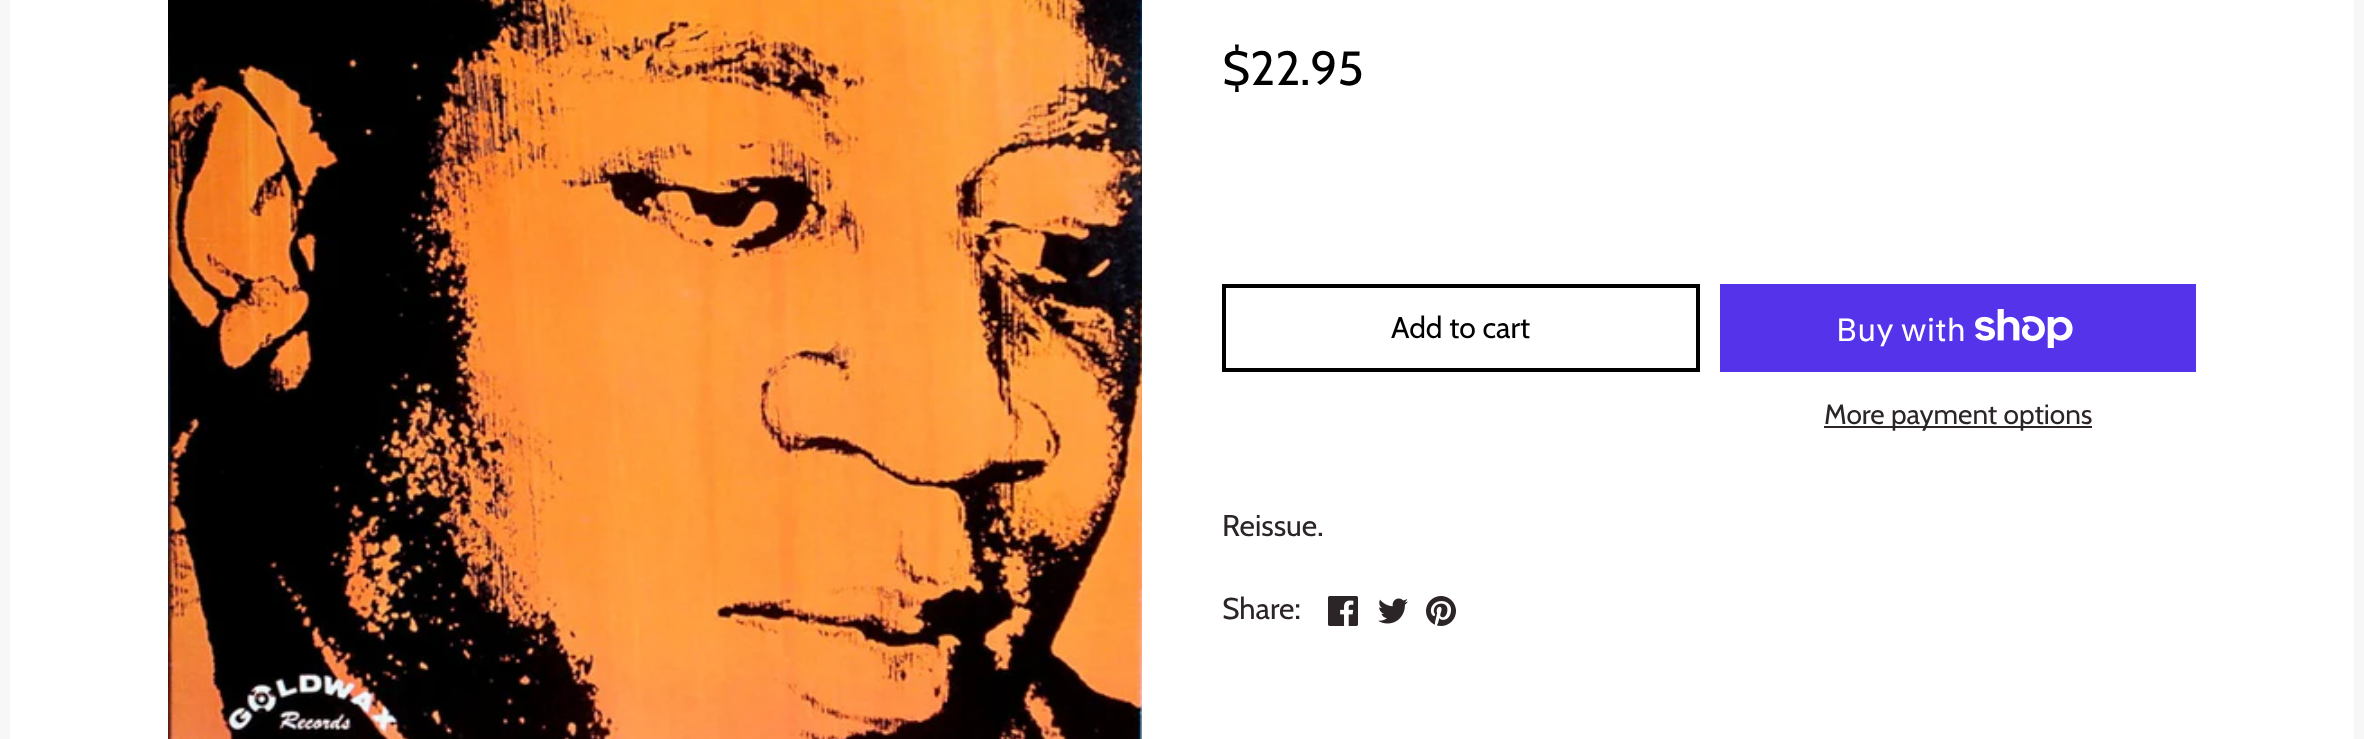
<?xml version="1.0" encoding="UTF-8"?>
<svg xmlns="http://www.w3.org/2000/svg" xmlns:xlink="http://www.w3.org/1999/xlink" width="2364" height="739">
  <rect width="100%" height="100%" fill="#ffffff" />
  <rect x="5" y="-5" width="2354" height="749" fill="none" stroke="#f7f7f7" stroke-width="10" />
  <image x="168" y="0" width="974" height="739" xlink:href="image1.png" />
  <rect x="1224" y="286" width="474" height="84" fill="none" stroke="#000000" stroke-width="4" />
  <rect x="1720" y="284" width="476" height="88" fill="#5433eb" />
  <image x="1975" y="309" width="98" height="39" xlink:href="image2.png" />
  <rect x="1824" y="426" width="268" height="2" fill="#2c2528" />
  <image x="1328" y="596" width="30" height="30" xlink:href="image3.png" />
  <image x="1378" y="598" width="30" height="26" xlink:href="image4.png" />
  <image x="1426" y="596" width="30" height="30" xlink:href="image5.png" />
  <text x="1222" y="85" style="font-family: Cabin; font-size: 48px; fill: #000000">$22.95</text>
  <text x="1391" y="338" style="font-family: Cabin; font-size: 30px; fill: #000000">Add to cart</text>
  <text x="1836" y="341" style="font-family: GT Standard; font-size: 32px; fill: #ffffff">Buy with</text>
  <text x="1824" y="424" style="font-family: Cabin; font-size: 28px; fill: #2c2528">More payment options</text>
  <text x="1222" y="536" style="font-family: Cabin; font-size: 30px; fill: #2c2528">Reissue.</text>
  <text x="1222" y="619" style="font-family: Cabin; font-size: 30px; fill: #2c2528">Share:</text>
</svg>
